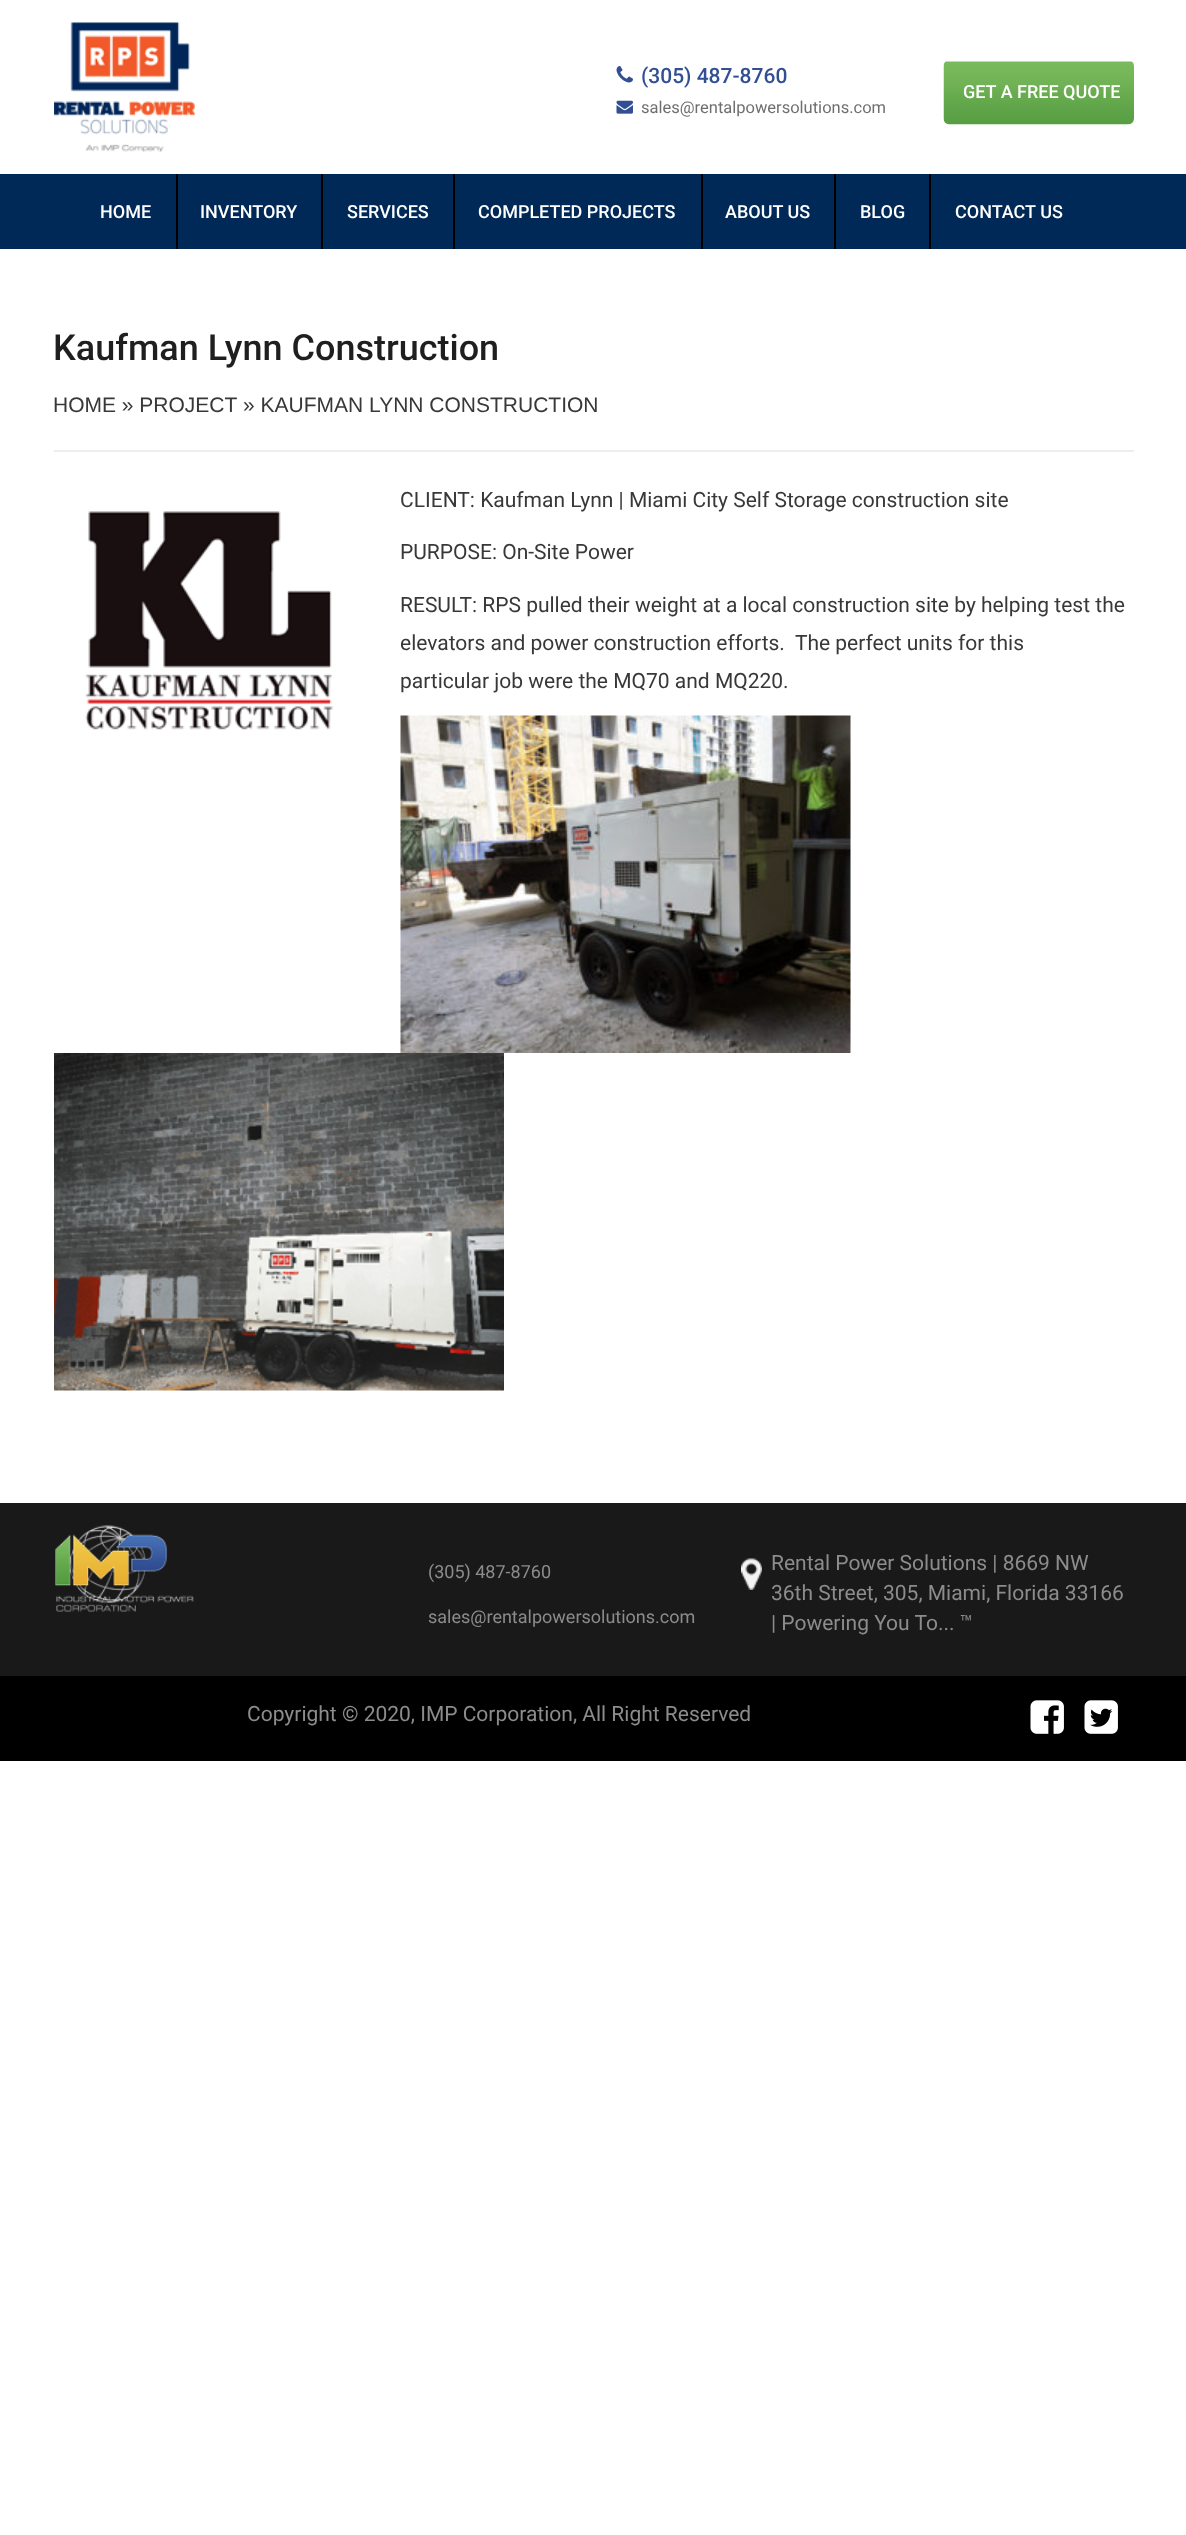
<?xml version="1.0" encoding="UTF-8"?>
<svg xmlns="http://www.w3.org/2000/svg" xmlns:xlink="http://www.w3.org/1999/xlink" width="1186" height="2535">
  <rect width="100%" height="100%" fill="#ffffff" />
  <image x="54" y="22" width="141" height="130" xlink:href="image1.png" />
  <image x="616" y="66" width="17" height="17" xlink:href="image2.png" />
  <image x="616" y="100" width="17" height="14" xlink:href="image3.png" />
  <image x="943" y="61" width="191" height="64" xlink:href="image4.png" />
  <rect y="174" width="1186" height="75" fill="#002958" />
  <rect x="176" y="174" width="2" height="75" fill="#000000" />
  <rect x="321" y="174" width="2" height="75" fill="#000000" />
  <rect x="453" y="174" width="2" height="75" fill="#000000" />
  <rect x="701" y="174" width="2" height="75" fill="#000000" />
  <rect x="834" y="174" width="2" height="75" fill="#000000" />
  <rect x="929" y="174" width="2" height="75" fill="#000000" />
  <rect x="54" y="450" width="1080" height="2" fill="#eeeeee" />
  <image x="85" y="511" width="249" height="219" xlink:href="image5.png" />
  <image x="400" y="715" width="451" height="338" xlink:href="image6.png" />
  <image x="54" y="1053" width="450" height="338" xlink:href="image7.png" />
  <rect y="1503" width="1186" height="173" fill="#191919" />
  <image x="55" y="1525" width="139" height="87" xlink:href="image8.png" />
  <image x="741" y="1558" width="21" height="32" xlink:href="image9.png" />
  <rect y="1676" width="1186" height="85" fill="#000000" />
  <image x="1030" y="1700" width="34" height="34" xlink:href="image10.png" />
  <image x="1084" y="1700" width="34" height="34" xlink:href="image11.png" />
  <text x="641" y="83" style="font-family: Roboto; font-size: 21px; font-weight: 500; fill: #324f94">(305) 487-8760</text>
  <text x="641" y="113" style="font-family: Roboto; font-size: 16.5px; fill: #706f6f">sales@rentalpowersolutions.com</text>
  <text x="963" y="98" style="font-family: Roboto; font-size: 18px; font-weight: 500; fill: #ffffff">GET A FREE QUOTE</text>
  <text x="100" y="218" style="font-family: Roboto; font-size: 18px; font-weight: 500; fill: #ffffff">HOME</text>
  <text x="200" y="218" style="font-family: Roboto; font-size: 18px; font-weight: 500; fill: #ffffff">INVENTORY</text>
  <text x="347" y="218" style="font-family: Roboto; font-size: 18px; font-weight: 500; fill: #ffffff">SERVICES</text>
  <text x="478" y="218" style="font-family: Roboto; font-size: 18px; font-weight: 500; fill: #ffffff">COMPLETED PROJECTS</text>
  <text x="725" y="218" style="font-family: Roboto; font-size: 18px; font-weight: 500; fill: #ffffff">ABOUT US</text>
  <text x="860" y="218" style="font-family: Roboto; font-size: 18px; font-weight: 500; fill: #ffffff">BLOG</text>
  <text x="955" y="218" style="font-family: Roboto; font-size: 18px; font-weight: 500; fill: #ffffff">CONTACT US</text>
  <text x="53" y="360" style="font-family: Roboto; font-size: 36px; font-weight: 500; fill: #1f1f1f">Kaufman Lynn Construction</text>
  <text x="53" y="412" style="font-family: Liberation Sans; font-size: 21px; fill: #383838">HOME » PROJECT</text>
  <text x="243" y="412" style="font-family: Liberation Sans; font-size: 21px; fill: #383838">» KAUFMAN LYNN CONSTRUCTION</text>
  <text x="400" y="507" style="font-family: Roboto; font-size: 21px; fill: #383838">CLIENT: Kaufman Lynn | Miami City Self Storage construction site</text>
  <text x="400" y="559" style="font-family: Roboto; font-size: 21px; fill: #383838">PURPOSE: On-Site Power</text>
  <text x="400" y="612" style="font-family: Roboto; font-size: 21px; fill: #383838">RESULT: RPS pulled their weight at a local construction site by helping test the</text>
  <text x="400" y="650" style="font-family: Roboto; font-size: 21px; fill: #383838" xml:space="preserve">elevators and power construction efforts.  The perfect units for this</text>
  <text x="400" y="688" style="font-family: Roboto; font-size: 21px; fill: #383838">particular job were the MQ70 and MQ220.</text>
  <text x="428" y="1578" style="font-family: Roboto; font-size: 18px; fill: #8c8c8c">(305) 487-8760</text>
  <text x="428" y="1623" style="font-family: Roboto; font-size: 18px; fill: #8c8c8c">sales@rentalpowersolutions.com</text>
  <text x="771" y="1570" style="font-family: Roboto; font-size: 21px; fill: #8c8c8c">Rental Power Solutions | 8669 NW</text>
  <text x="771" y="1600" style="font-family: Roboto; font-size: 21px; fill: #8c8c8c">36th Street, 305, Miami, Florida 33166</text>
  <text x="771" y="1630" style="font-family: Roboto; font-size: 21px; fill: #8c8c8c">| Powering You To... ™</text>
  <text x="247" y="1721" style="font-family: Roboto; font-size: 21px; fill: #8c8c8c">Copyright © 2020, IMP Corporation, All Right Reserved</text>
</svg>
